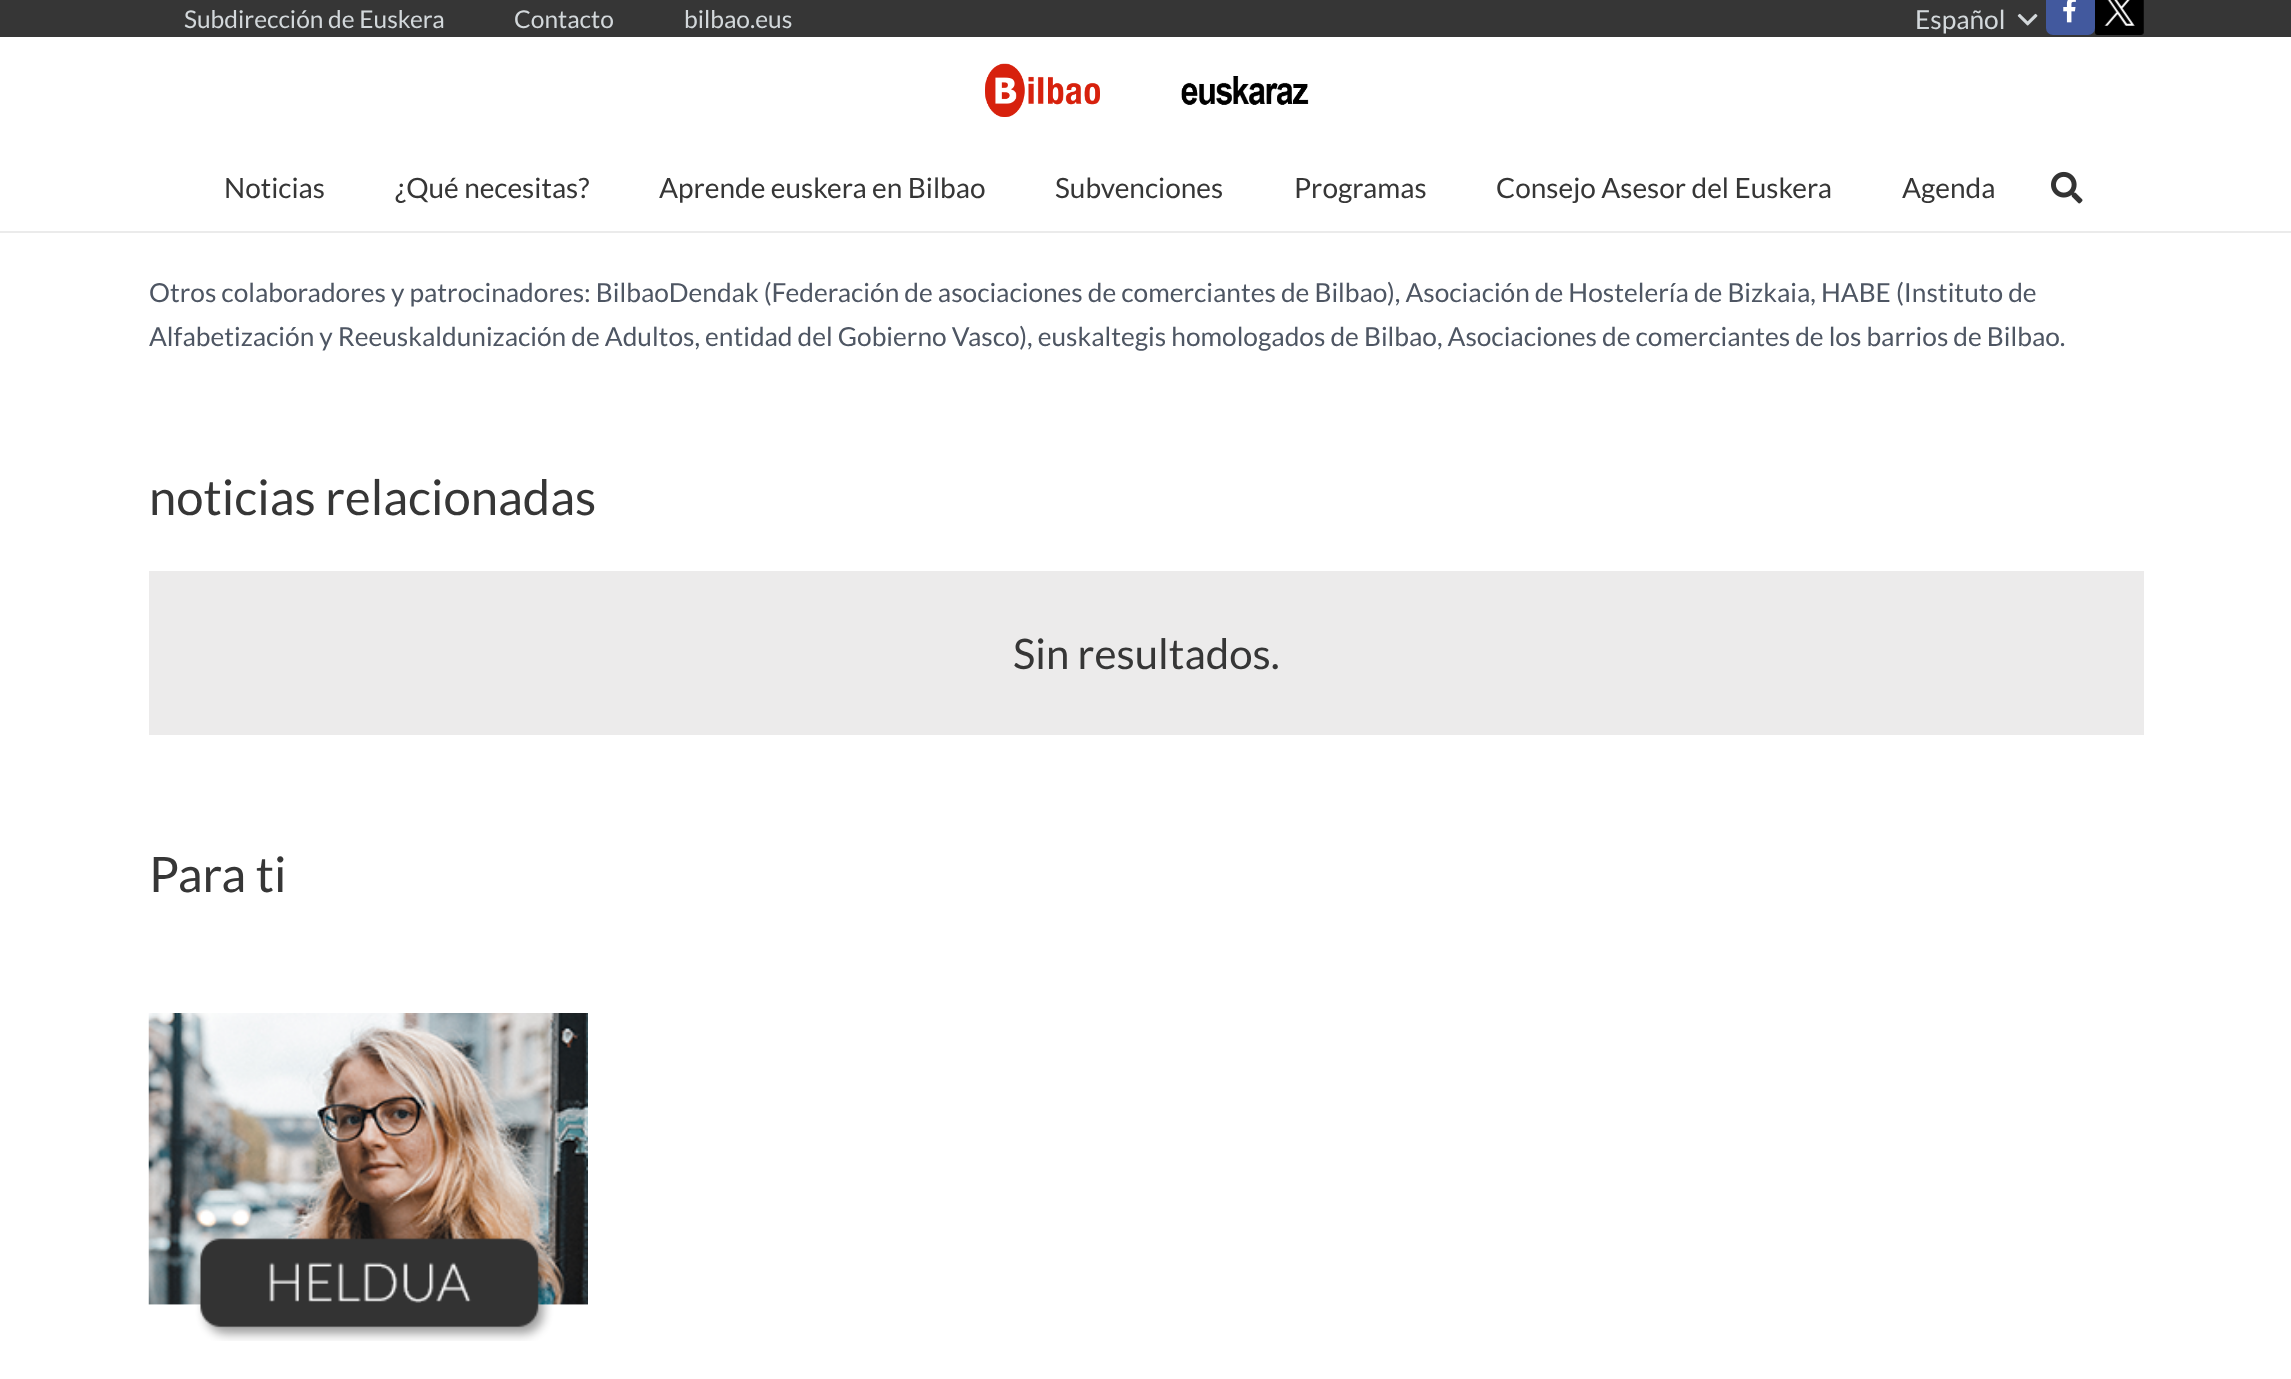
<?xml version="1.0" encoding="UTF-8"?>
<svg xmlns="http://www.w3.org/2000/svg" xmlns:xlink="http://www.w3.org/1999/xlink" width="2291" height="1379">
  <rect width="100%" height="100%" fill="#ffffff" />
  <rect width="2291" height="37" fill="#363636" />
  <image x="2017" y="13" width="21" height="13" xlink:href="image1.png" />
  <rect x="2046" y="-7" width="49" height="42" rx="7" fill="#42599e" />
  <image x="2063" y="0" width="13" height="23" xlink:href="image2.png" />
  <image x="2095" y="0" width="49" height="35" xlink:href="image3.png" />
  <image x="985" y="63" width="324" height="54" xlink:href="image4.png" />
  <path d="M 0 231 v 2 h 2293 v -88 h -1 v 86 z" fill="#ebebeb" />
  <image x="2051" y="171" width="32" height="33" xlink:href="image5.png" />
  <rect x="149" y="571" width="1995" height="164" fill="#ecebeb" />
  <image x="148" y="1013" width="440" height="328" xlink:href="image6.png" />
  <text x="184" y="28" style="font-family: Lato; font-size: 24.5px; fill: #d3d8db">Subdirección de Euskera</text>
  <text x="514" y="28" style="font-family: Lato; font-size: 24.5px; fill: #d3d8db">Contacto</text>
  <text x="684" y="28" style="font-family: Lato; font-size: 24.5px; fill: #d3d8db">bilbao.eus</text>
  <text x="1915" y="29" style="font-family: Lato; font-size: 26.25px; fill: #d3d8db">Español</text>
  <text x="224" y="198" style="font-family: Lato; font-size: 28px; fill: #363636">Noticias</text>
  <text x="395" y="198" style="font-family: Lato; font-size: 28px; fill: #363636">¿Qué necesitas?</text>
  <text x="659" y="198" style="font-family: Lato; font-size: 28px; fill: #363636">Aprende euskera en Bilbao</text>
  <text x="1055" y="198" style="font-family: Lato; font-size: 28px; fill: #363636">Subvenciones</text>
  <text x="1294" y="198" style="font-family: Lato; font-size: 28px; fill: #363636">Programas</text>
  <text x="1496" y="198" style="font-family: Lato; font-size: 28px; fill: #363636">Consejo Asesor del Euskera</text>
  <text x="1902" y="198" style="font-family: Lato; font-size: 28px; fill: #363636">Agenda</text>
  <text x="149" y="302" style="font-family: Lato; font-size: 26.25px; fill: #4e5663">Otros colaboradores y patrocinadores: BilbaoDendak (Federación de asociaciones de comerciantes de Bilbao), Asociación de Hostelería de Bizkaia, HABE (Instituto de</text>
  <text x="149" y="346" style="font-family: Lato; font-size: 26.25px; fill: #4e5663">Alfabetización y Reeuskaldunización de Adultos, entidad del Gobierno Vasco), euskaltegis homologados de Bilbao, Asociaciones de comerciantes de los barrios de Bilbao.</text>
  <text x="149" y="515" style="font-family: Lato; font-size: 49px; fill: #363636">noticias relacionadas</text>
  <text x="1013" y="669" style="font-family: Lato; font-size: 42px; fill: #363636">Sin resultados.</text>
  <text x="149" y="892" style="font-family: Lato; font-size: 49px; fill: #363636">Para ti</text>
</svg>
